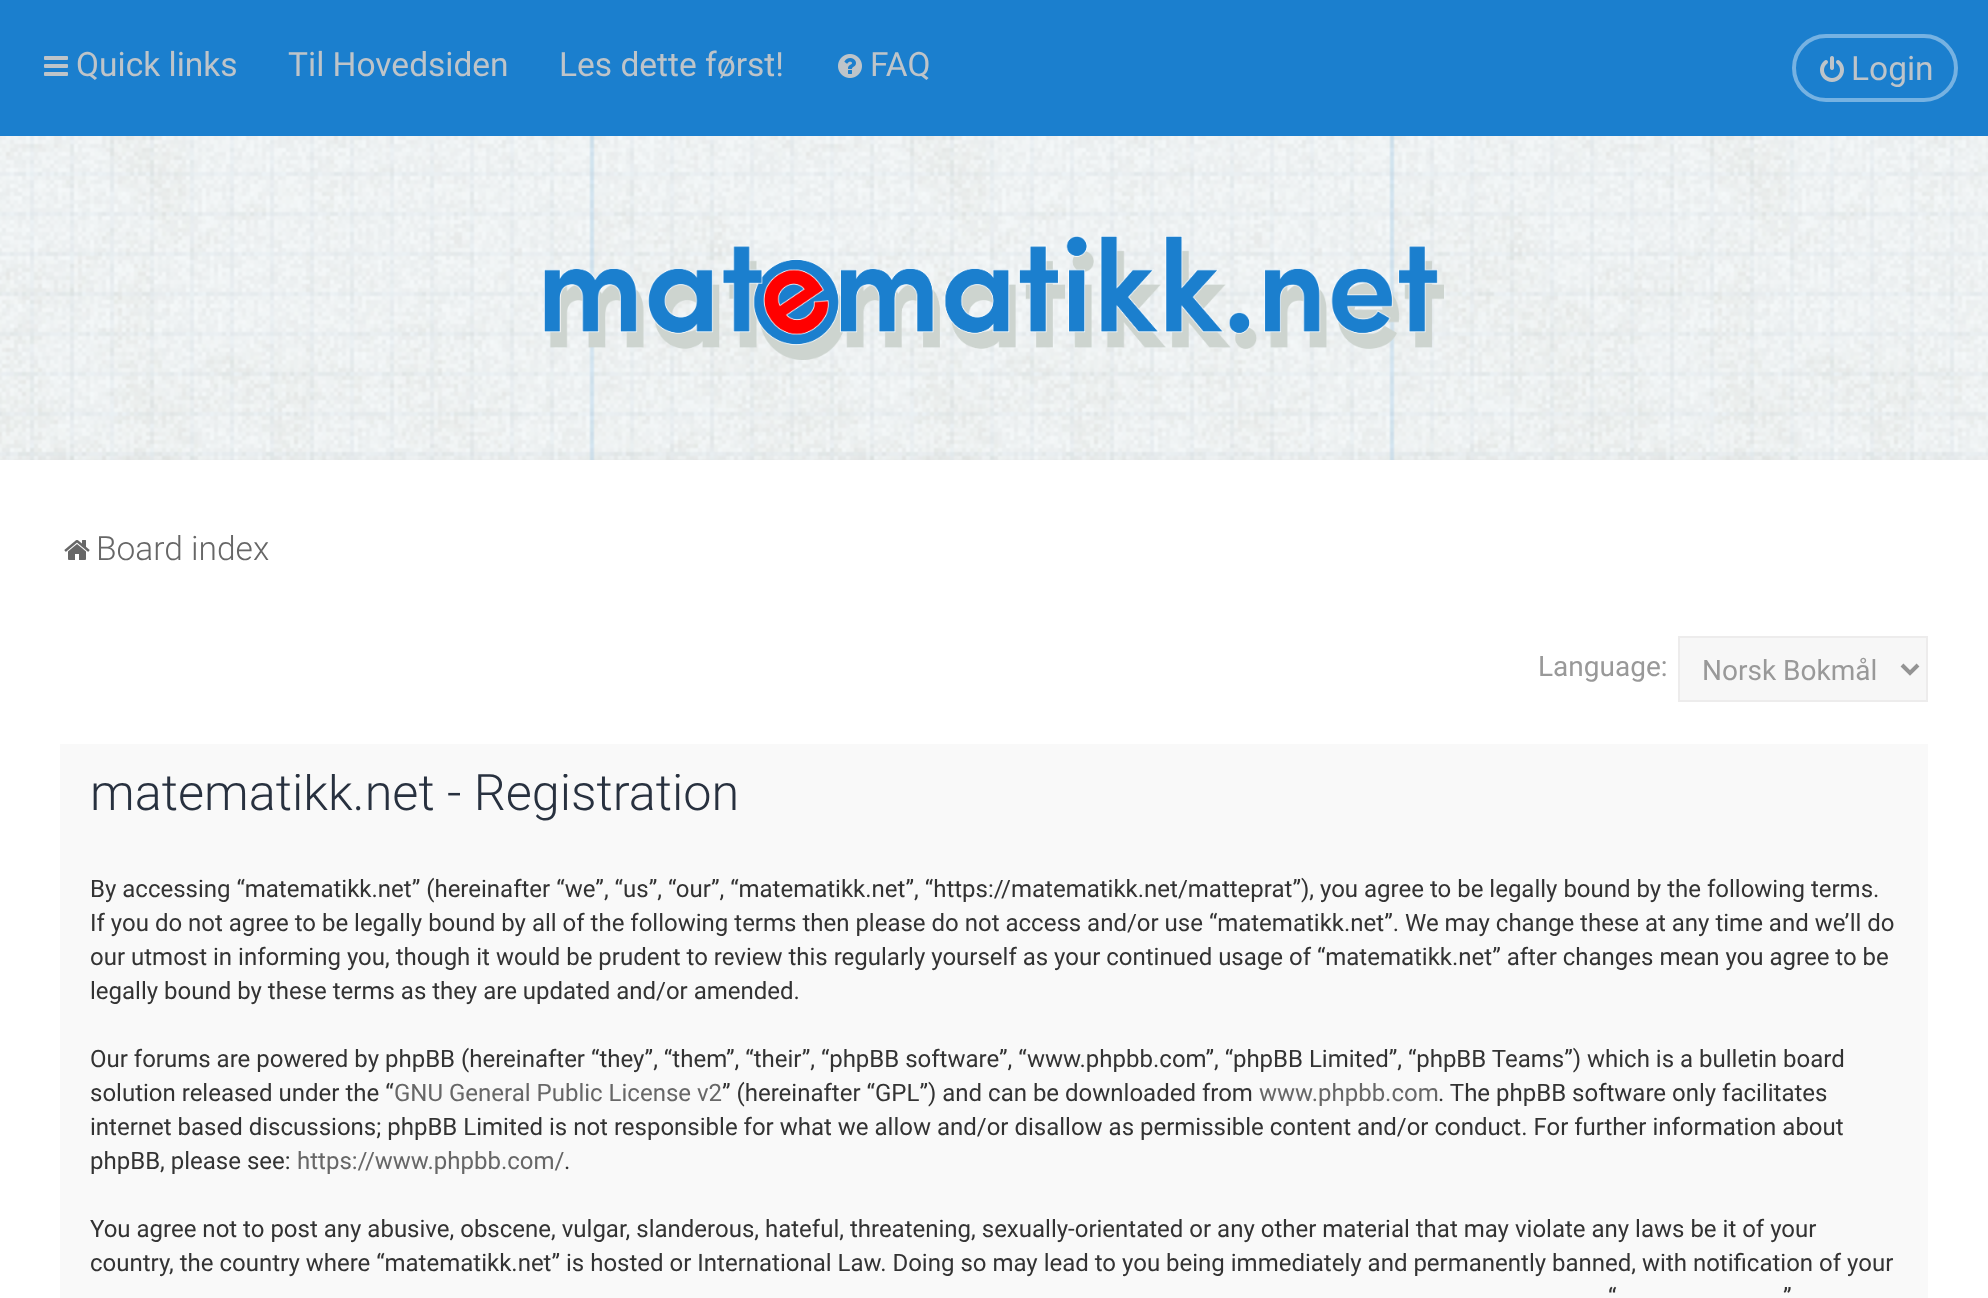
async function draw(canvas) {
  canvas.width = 1988;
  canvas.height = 1298;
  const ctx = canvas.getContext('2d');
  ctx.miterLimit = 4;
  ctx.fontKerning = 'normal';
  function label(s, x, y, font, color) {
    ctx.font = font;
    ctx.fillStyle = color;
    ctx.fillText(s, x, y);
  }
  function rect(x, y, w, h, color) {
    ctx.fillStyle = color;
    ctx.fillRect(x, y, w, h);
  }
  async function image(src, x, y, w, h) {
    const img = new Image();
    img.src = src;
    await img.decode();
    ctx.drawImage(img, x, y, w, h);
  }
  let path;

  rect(0, 0, 1988, 1298, '#fff');
  rect(0, 0, 1988, 136, '#1b7fce');
  await image('assets/img1.png', 44, 56, 24, 20);
  label('Quick links', 76, 76, '33.5px Roboto', '#bec4c9');
  label('Til Hovedsiden', 288, 76, '33.5px Roboto', '#bec4c9');
  label('Les dette først!', 559, 76, '33.5px Roboto', '#bec4c9');
  await image('assets/img2.png', 838, 54, 24, 24);
  label('FAQ', 870, 76, '33.5px Roboto', '#bec4c9');
  ctx.beginPath();
  ctx.roundRect(1794, 36, 162, 64, 32);
  ctx.strokeStyle = '#76b2e2';
  ctx.lineWidth = 4;
  ctx.stroke();
  await image('assets/img3.png', 1820, 56, 24, 26);
  label('Login', 1851, 80, '33.5px Roboto', '#bec4c9');
  await image('assets/img4.png', 0, 136, 1988, 324);
  await image('assets/img5.png', 544, 236, 900, 124);
  ctx.fillStyle = '#0000000d';
  ctx.filter = 'blur(5px)';
  ctx.beginPath();
  ctx.rect(0, 460, 1988, 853);
  ctx.fill();
  ctx.filter = 'none';
  rect(0, 460, 1988, 838, '#fff');
  await image('assets/img6.png', 64, 540, 26, 20);
  label('Board index', 96, 560, '300 33.5px Roboto', '#676767');
  label('Language:', 1538, 676, '28px Roboto', '#999');
  ctx.fillStyle = '#f7f7f7';
  ctx.beginPath();
  ctx.rect(1679, 637, 248, 64);
  ctx.fill();
  ctx.strokeStyle = '#edecec';
  ctx.lineWidth = 2;
  ctx.stroke();
  path = new Path2D('M1902 665L1910 673L1918 665');
  ctx.strokeStyle = '#949494';
  ctx.lineWidth = 4;
  ctx.stroke(path);
  label('Norsk Bokmål', 1702, 680, '28px Roboto', '#999');
  rect(60, 744, 1868, 554, '#f9f9f9');
  ctx.save();
  ctx.beginPath();
  ctx.rect(90, 774, 1808, 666);
  ctx.clip();
  label('matematikk.net - Registration', 90, 810, '300 50.4px Roboto', '#28313f');
  ctx.restore();
  label('By accessing “matematikk.net” (hereinafter “we”, “us”, “our”, “matematikk.net”, “https://matematikk.net/matteprat”), you agree to be legally bound by the following terms.', 90, 897, '24px Roboto', '#333');
  label('If you do not agree to be legally bound by all of the following terms then please do not access and/or use “matematikk.net”. We may change these at any time and we’ll do', 90, 931, '24px Roboto', '#333');
  label('our utmost in informing you, though it would be prudent to review this regularly yourself as your continued usage of “matematikk.net” after changes mean you agree to be', 90, 965, '24px Roboto', '#333');
  label('legally bound by these terms as they are updated and/or amended.', 90, 999, '24px Roboto', '#333');
  label('Our forums are powered by phpBB (hereinafter “they”, “them”, “their”, “phpBB software”, “www.phpbb.com”, “phpBB Limited”, “phpBB Teams”) which is a bulletin board', 90, 1067, '24px Roboto', '#333');
  label('solution released under the “', 90, 1101, '24px Roboto', '#333');
  label('GNU General Public License v2', 394, 1101, '24px Roboto', '#676767');
  label('” (hereinafter “GPL”) and can be downloaded from', 722, 1101, '24px Roboto', '#333');
  label('www.phpbb.com', 1259, 1101, '24px Roboto', '#676767');
  label('. The phpBB software only facilitates', 1438, 1101, '24px Roboto', '#333');
  label('internet based discussions; phpBB Limited is not responsible for what we allow and/or disallow as permissible content and/or conduct. For further information about', 90, 1135, '24px Roboto', '#333');
  label('phpBB, please see:', 90, 1169, '24px Roboto', '#333');
  label('https://www.phpbb.com/', 297, 1169, '24px Roboto', '#676767');
  label('.', 564, 1169, '24px Roboto', '#333');
  label('You agree not to post any abusive, obscene, vulgar, slanderous, hateful, threatening, sexually-orientated or any other material that may violate any laws be it of your', 90, 1237, '24px Roboto', '#333');
  label('country, the country where “matematikk.net” is hosted or International Law. Doing so may lead to you being immediately and permanently banned, with notification of your', 90, 1271, '24px Roboto', '#333');
  label('“', 1608, 1305, '24px Roboto', '#333');
  label('”', 1783, 1305, '24px Roboto', '#333');
}

draw(document.querySelector('canvas'));
